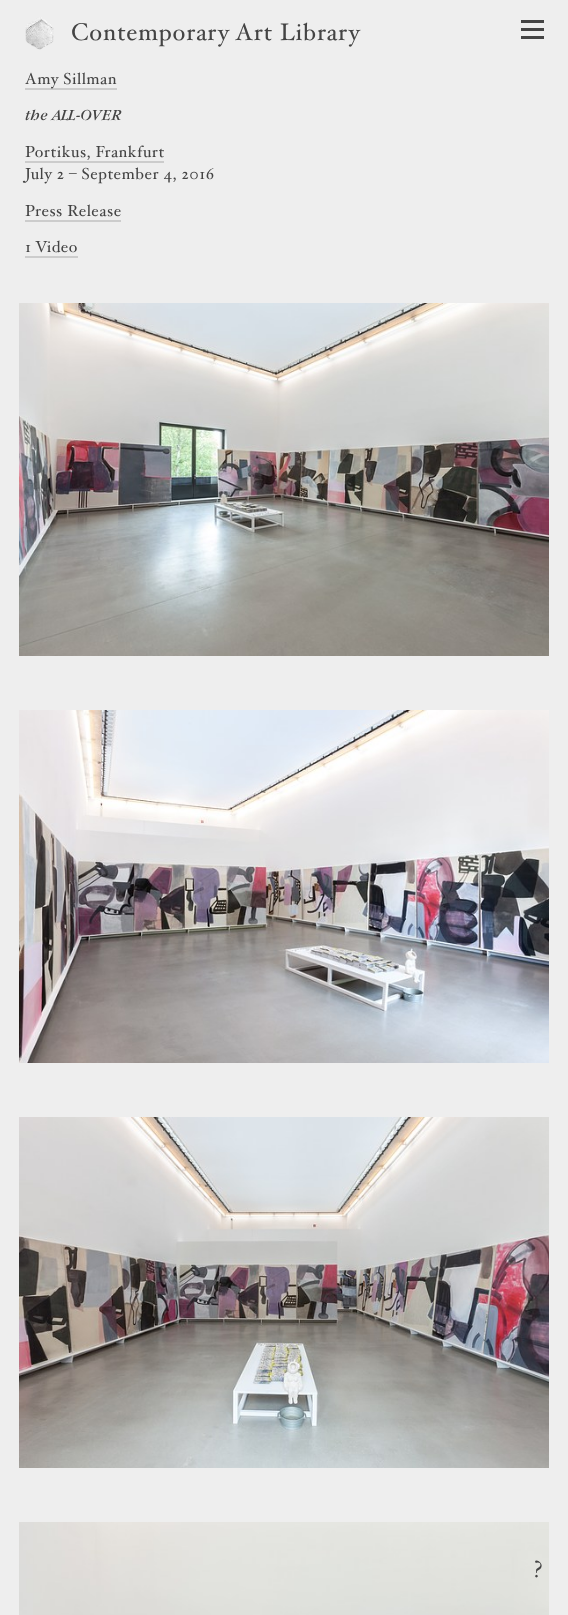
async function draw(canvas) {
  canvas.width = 568;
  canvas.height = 1615;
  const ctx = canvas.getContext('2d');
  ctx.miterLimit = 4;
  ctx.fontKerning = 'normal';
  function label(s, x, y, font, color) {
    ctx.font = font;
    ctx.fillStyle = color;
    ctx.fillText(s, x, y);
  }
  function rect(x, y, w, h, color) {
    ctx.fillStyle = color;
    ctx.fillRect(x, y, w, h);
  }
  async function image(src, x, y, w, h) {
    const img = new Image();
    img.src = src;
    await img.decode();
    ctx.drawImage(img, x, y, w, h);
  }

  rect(0, 0, 568, 1615, '#eee');
  await image('assets/img1.png', 25, 17, 29, 33);
  ctx.letterSpacing = '0.75px';
  label('Contemporary Art Library', 71, 40, '24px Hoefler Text', '#444');
  rect(521, 20, 23, 3, '#444');
  rect(521, 28, 23, 3, '#444');
  rect(521, 36, 23, 3, '#444');
  rect(25, 88, 92, 2, '#ccc');
  ctx.letterSpacing = '0.5px';
  label('Amy Sillman', 25, 84, '16px Hoefler Text', '#444');
  label('the ALL-OVER', 25, 120, 'italic 16px Garamond', '#444');
  label('Portikus, Frankfurt', 25, 157, '16px Hoefler Text', '#444');
  rect(25, 161, 139, 2, '#ccc');
  label('July 2 – September 4, 2016', 25, 179, '16px Hoefler Text', '#444');
  label('Press Release', 25, 216, '16px Hoefler Text', '#444');
  rect(25, 220, 96, 2, '#ccc');
  label('1 Video', 25, 252, '16px Hoefler Text', '#444');
  rect(25, 256, 53, 2, '#ccc');
  await image('assets/img2.png', 19, 303, 530, 353);
  await image('assets/img3.png', 19, 710, 530, 353);
  await image('assets/img4.png', 19, 1117, 530, 351);
  await image('assets/img5.png', 19, 1522, 530, 93);
  label('?', 534, 1577, '24px Hoefler Text', '#444');
}

draw(document.querySelector('canvas'));
